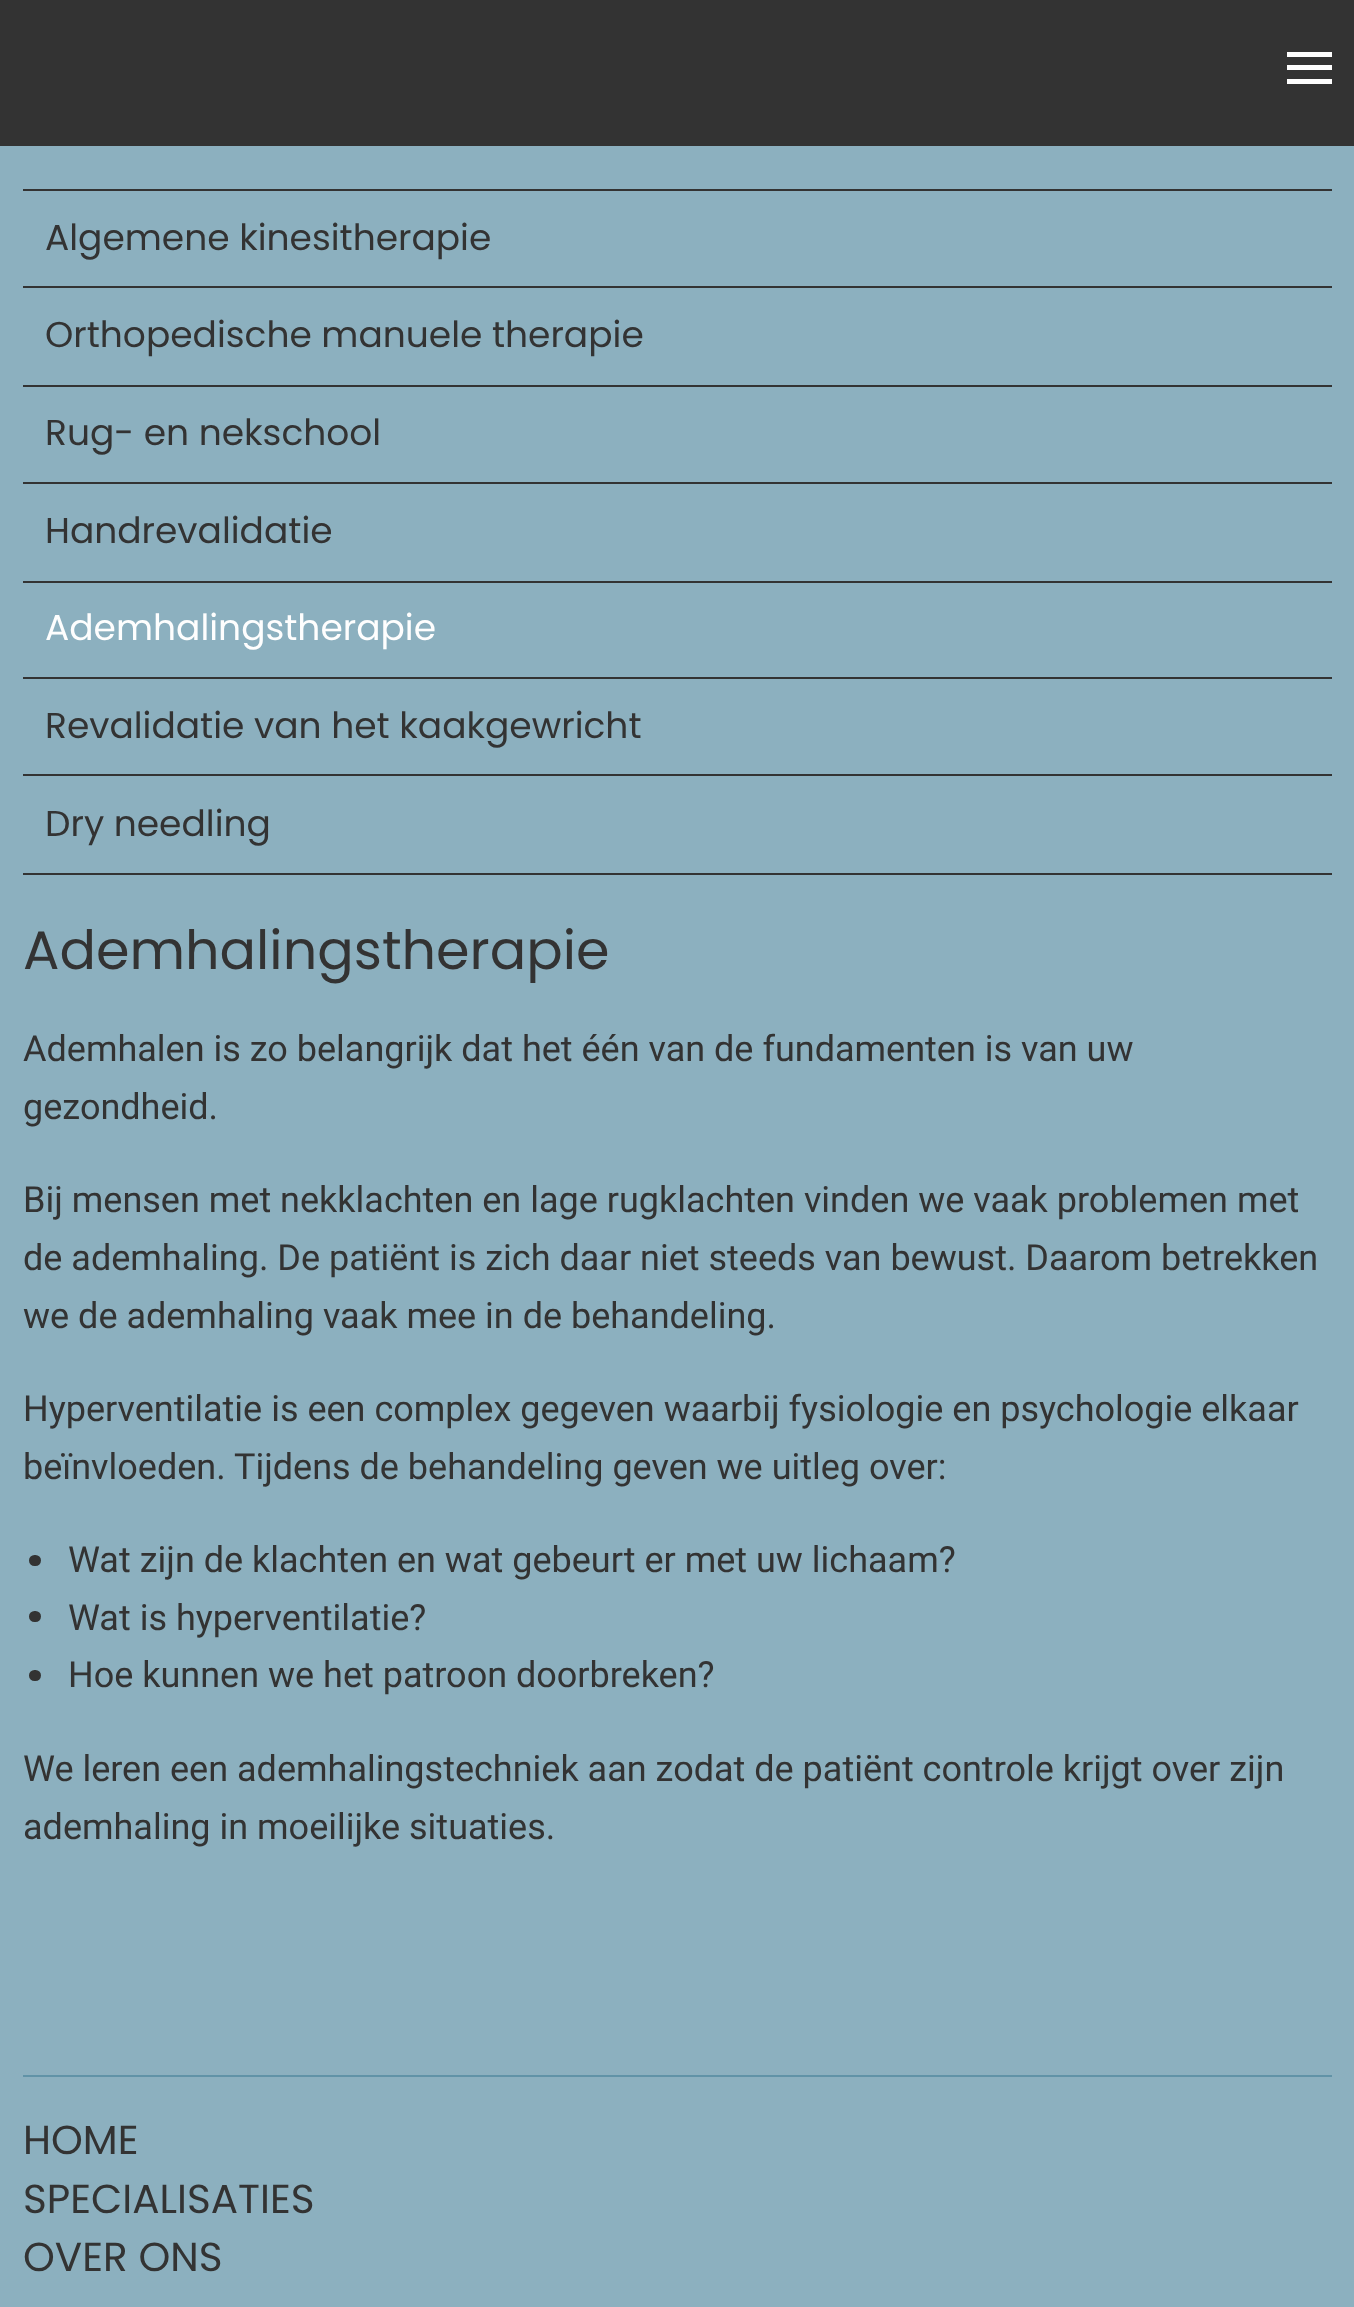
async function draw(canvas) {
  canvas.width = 1354;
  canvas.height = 2307;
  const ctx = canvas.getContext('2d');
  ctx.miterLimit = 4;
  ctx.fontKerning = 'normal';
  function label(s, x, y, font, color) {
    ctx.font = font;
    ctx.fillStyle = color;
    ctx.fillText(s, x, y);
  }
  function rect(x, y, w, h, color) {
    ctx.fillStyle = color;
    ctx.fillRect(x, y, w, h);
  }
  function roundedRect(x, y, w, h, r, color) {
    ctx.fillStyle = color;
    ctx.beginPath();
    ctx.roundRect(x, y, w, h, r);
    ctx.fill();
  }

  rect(0, 0, 1354, 2307, '#8cb0bf');
  rect(0, 0, 1354, 146, '#333');
  rect(1287, 79, 45, 5, '#fefefe');
  rect(1287, 65, 45, 5, '#fefefe');
  rect(1287, 52, 45, 5, '#fefefe');
  rect(23, 189, 1309, 2, '#333');
  rect(23, 286, 1309, 2, '#333');
  label('Algemene kinesitherapie', 45, 250, '36px Poppins', '#333');
  rect(23, 385, 1309, 2, '#333');
  label('Orthopedische manuele therapie', 45, 347, '36px Poppins', '#333');
  rect(23, 482, 1309, 2, '#333');
  label('Rug- en nekschool', 45, 445, '36px Poppins', '#333');
  rect(23, 581, 1309, 2, '#333');
  label('Handrevalidatie', 45, 543, '36px Poppins', '#333');
  rect(23, 677, 1309, 2, '#333');
  label('Ademhalingstherapie', 45, 640, '36px Poppins', '#fefefe');
  rect(23, 774, 1309, 2, '#333');
  label('Revalidatie van het kaakgewricht', 45, 738, '36px Poppins', '#333');
  rect(23, 873, 1309, 2, '#333');
  label('Dry needling', 45, 836, '36px Poppins', '#333');
  label('Ademhalingstherapie', 23, 969, '54px Poppins', '#333');
  label('Ademhalen is zo belangrijk dat het één van de fundamenten is van uw', 23, 1061, '36px Roboto', '#333');
  label('gezondheid.', 23, 1119, '36px Roboto', '#333');
  label('Bij mensen met nekklachten en lage rugklachten vinden we vaak problemen met', 23, 1212, '36px Roboto', '#333');
  label('de ademhaling. De patiënt is zich daar niet steeds van bewust. Daarom betrekken', 23, 1270, '36px Roboto', '#333');
  label('we de ademhaling vaak mee in de behandeling.', 23, 1328, '36px Roboto', '#333');
  label('Hyperventilatie is een complex gegeven waarbij fysiologie en psychologie elkaar', 23, 1421, '36px Roboto', '#333');
  label('beïnvloeden. Tijdens de behandeling geven we uitleg over:', 23, 1479, '36px Roboto', '#333');
  roundedRect(29, 1555, 12, 11, 5.5, '#333');
  label('Wat zijn de klachten en wat gebeurt er met uw lichaam?', 68, 1572, '36px Roboto', '#333');
  roundedRect(29, 1611, 12, 11, 5.5, '#333');
  label('Wat is hyperventilatie?', 68, 1630, '36px Roboto', '#333');
  roundedRect(29, 1670, 12, 11, 5.5, '#333');
  label('Hoe kunnen we het patroon doorbreken?', 68, 1687, '36px Roboto', '#333');
  label('We leren een ademhalingstechniek aan zodat de patiënt controle krijgt over zijn', 23, 1781, '36px Roboto', '#333');
  label('ademhaling in moeilijke situaties.', 23, 1839, '36px Roboto', '#333');
  rect(23, 2075, 1309, 2, '#6193a7');
  label('HOME', 23, 2154, '40.5px Poppins', '#333');
  label('SPECIALISATIES', 23, 2213, '40.5px Poppins', '#333');
  label('OVER ONS', 23, 2271, '40.5px Poppins', '#333');
}

draw(document.querySelector('canvas'));
